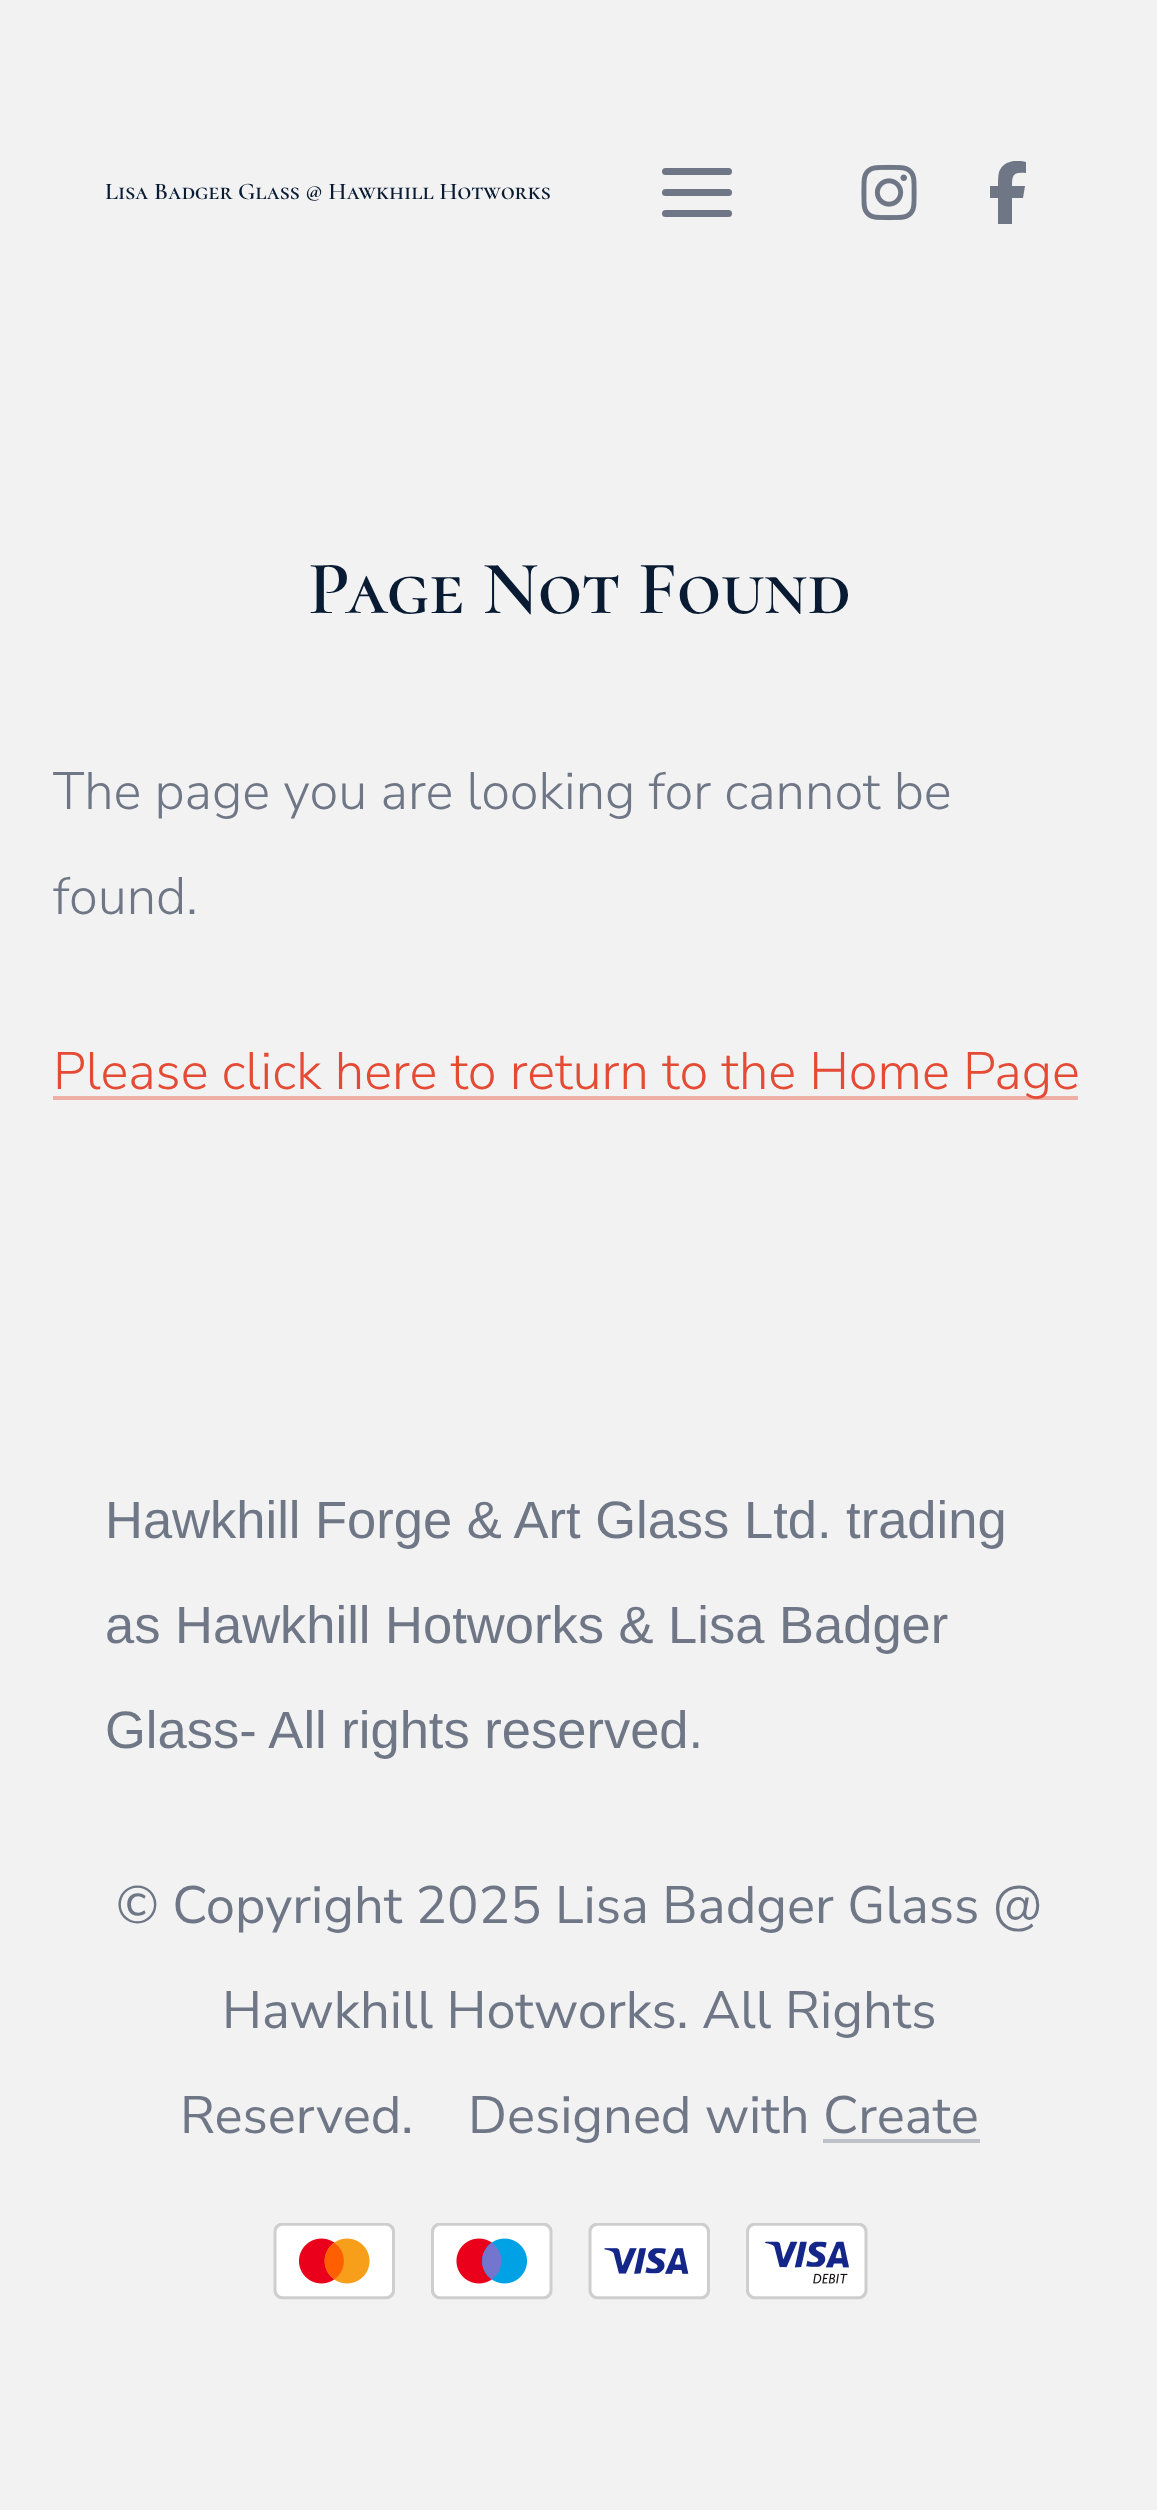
async function draw(canvas) {
  canvas.width = 1157;
  canvas.height = 2510;
  const ctx = canvas.getContext('2d');
  ctx.miterLimit = 4;
  ctx.fontKerning = 'normal';
  function label(s, x, y, font, color) {
    ctx.font = font;
    ctx.fillStyle = color;
    ctx.fillText(s, x, y);
  }
  function rect(x, y, w, h, color) {
    ctx.fillStyle = color;
    ctx.fillRect(x, y, w, h);
  }
  function roundedRect(x, y, w, h, r, color) {
    ctx.fillStyle = color;
    ctx.beginPath();
    ctx.roundRect(x, y, w, h, r);
    ctx.fill();
  }
  async function image(src, x, y, w, h) {
    const img = new Image();
    img.src = src;
    await img.decode();
    ctx.drawImage(img, x, y, w, h);
  }
  let path;

  rect(0, 0, 1157, 2510, '#f2f2f2');
  label('Lisa Badger Glass @ Hawkhill Hotworks', 105, 199, '600 24px Cormorant SC', '#081b33');
  roundedRect(662, 189, 70, 7, 3.5, '#6f7787');
  roundedRect(662, 168, 70, 7, 3.5, '#6f7787');
  roundedRect(662, 210, 70, 7, 3.5, '#6f7787');
  await image('assets/img1.png', 861, 164, 56, 57);
  ctx.save();
  ctx.beginPath();
  ctx.rect(977, 161, 63, 63);
  ctx.clip();
  path = new Path2D('M998 198V224H1012V198H1023L1025 186H1012C1012 174 1014 172 1026 173V162C1016 159 1003 161 999 172C998 176 998 181 998 186H990V198Z');
  ctx.fill(path);
  ctx.restore();
  label('Page Not Found', 308, 613, '600 76.25px Cormorant SC', '#081b33');
  label('The page you are looking for cannot be', 53, 809, '300 52.5px Nunito Sans', '#6f7787');
  label('found.', 53, 914, '300 52.5px Nunito Sans', '#6f7787');
  rect(53, 1096, 1025, 4, '#edafa6');
  label('Please click here to return to the Home Page', 53, 1089, '300 52.5px Nunito Sans', '#e54a35');
  label('Hawkhill Forge & Art Glass Ltd. trading', 105, 1538, '52.5px Liberation Sans', '#6f7787');
  label('as Hawkhill Hotworks & Lisa Badger', 105, 1643, '52.5px Liberation Sans', '#6f7787');
  label('Glass- All rights reserved.', 105, 1748, '52.5px Liberation Sans', '#6f7787');
  label('© Copyright 2025 Lisa Badger Glass @', 116, 1923, '52.5px Nunito Sans', '#6f7787');
  label('Hawkhill Hotworks. All Rights', 222, 2028, '52.5px Nunito Sans', '#6f7787');
  label('Reserved.', 180, 2133, '52.5px Nunito Sans', '#6f7787');
  label('Designed with Create', 468, 2133, '52.5px Nunito Sans', '#6f7787');
  rect(823, 2139, 157, 4, '#bec1c7');
  await image('assets/img2.png', 273, 2223, 122, 77);
  await image('assets/img3.png', 431, 2223, 122, 77);
  await image('assets/img4.png', 588, 2223, 122, 77);
  await image('assets/img5.png', 746, 2223, 122, 77);
}

draw(document.querySelector('canvas'));
